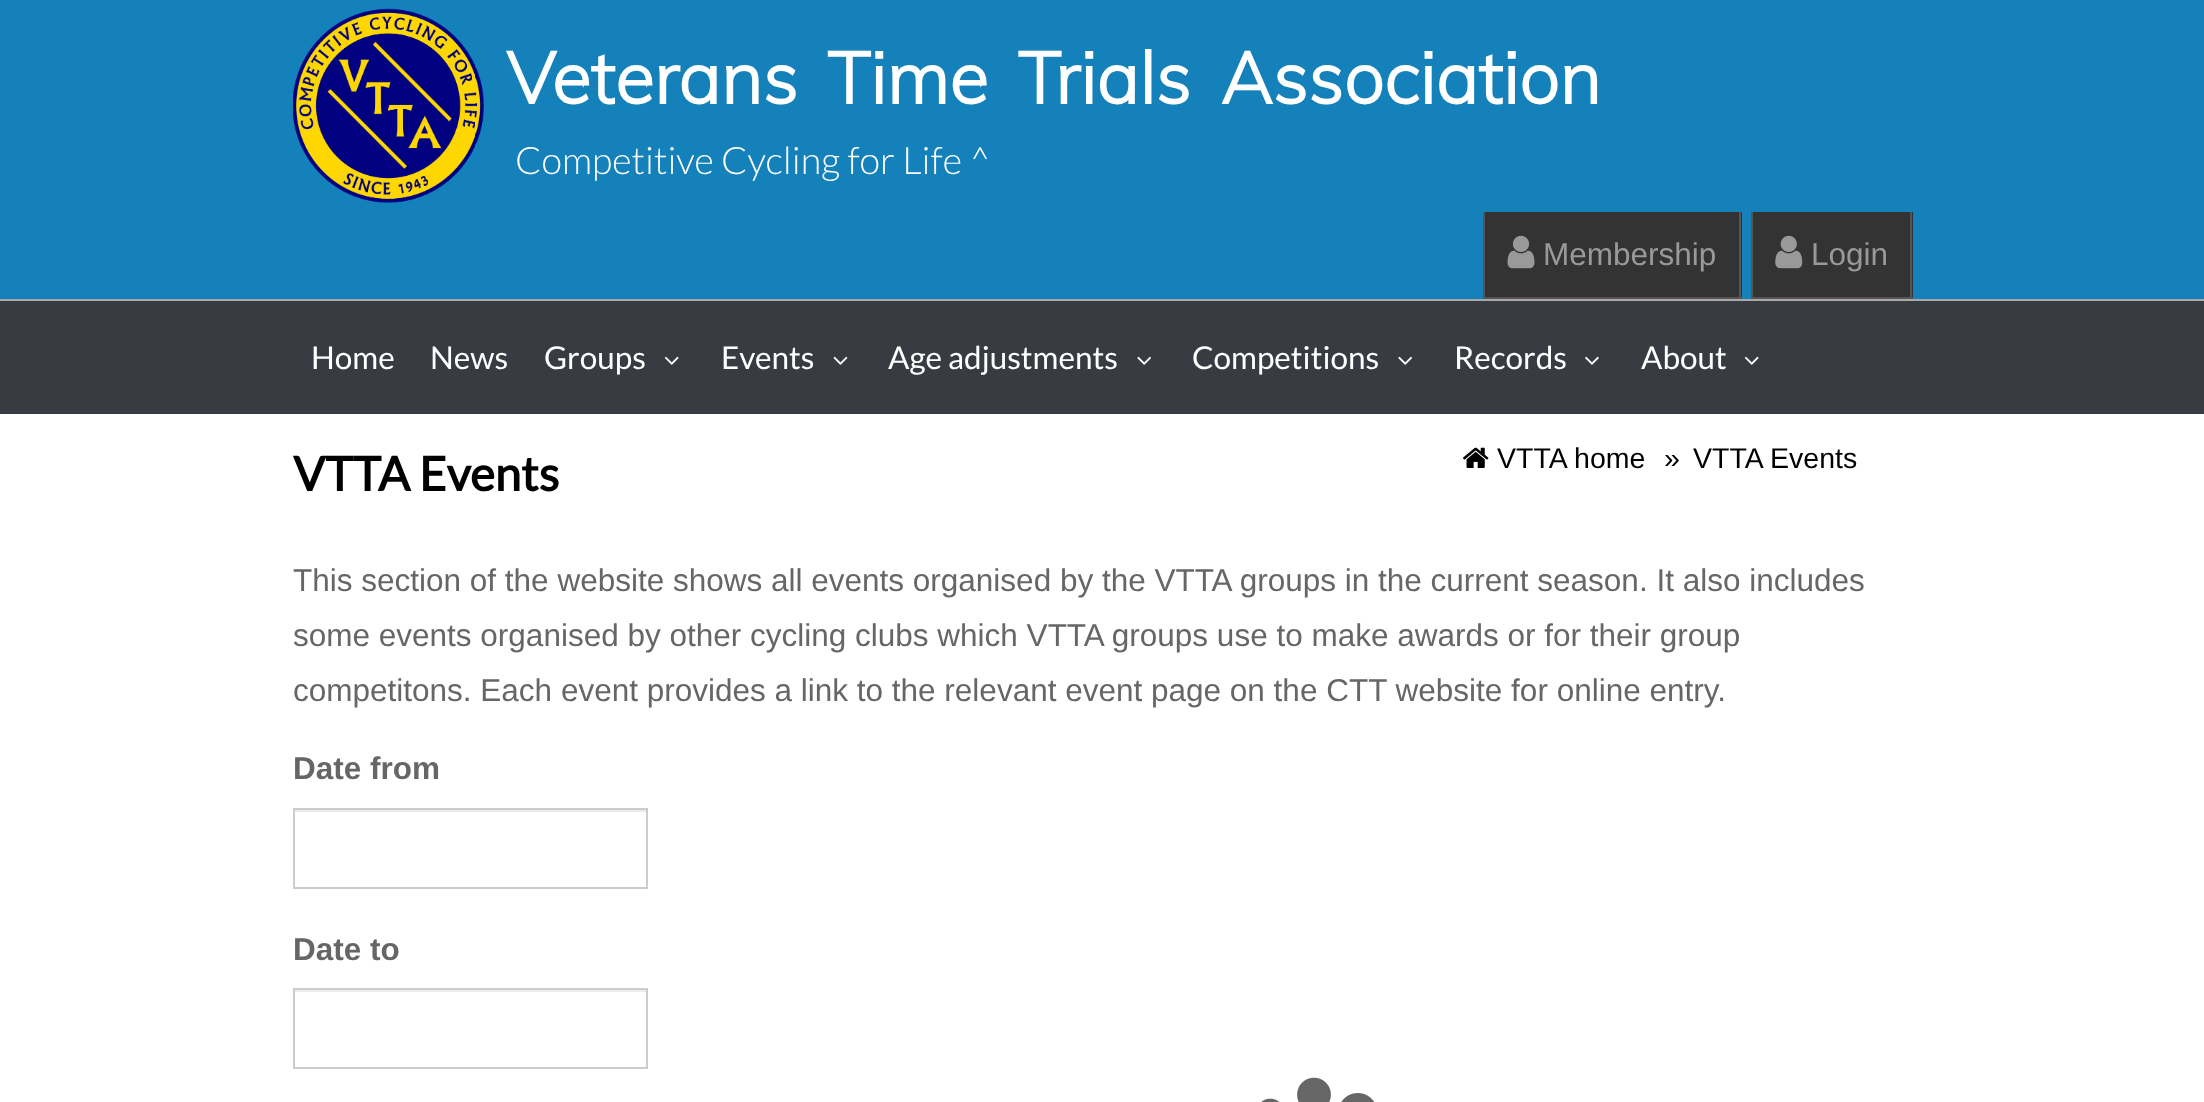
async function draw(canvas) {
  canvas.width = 2204;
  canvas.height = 1102;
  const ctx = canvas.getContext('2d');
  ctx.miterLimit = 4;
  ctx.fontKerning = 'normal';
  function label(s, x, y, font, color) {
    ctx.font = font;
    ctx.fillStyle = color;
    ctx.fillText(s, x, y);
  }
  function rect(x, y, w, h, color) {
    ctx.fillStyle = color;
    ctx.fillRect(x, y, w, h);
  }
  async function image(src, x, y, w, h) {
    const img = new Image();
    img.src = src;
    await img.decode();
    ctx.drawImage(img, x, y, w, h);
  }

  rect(0, 0, 2204, 1102, '#fff');
  rect(0, 0, 2204, 299, '#1481ba');
  await image('assets/img1.png', 293, 8, 191, 195);
  ctx.wordSpacing = '11px';
  label('Veterans Time Trials Association', 506, 104, 'bold 72px Muli', '#fff');
  ctx.wordSpacing = '0px';
  label('Competitive Cycling for Life ^', 515, 174, '300 37.75px Lato', '#fff');
  rect(1485, 212, 257, 85, '#333');
  rect(1739, 212, 2, 87, '#555');
  rect(1483, 297, 259, 2, '#555');
  rect(1483, 212, 2, 87, '#555');
  await image('assets/img2.png', 1507, 235, 28, 34);
  label('Membership', 1543, 265, '31.5px Liberation Sans', '#999');
  rect(1753, 212, 160, 85, '#333');
  rect(1910, 212, 2, 87, '#555');
  rect(1751, 297, 162, 2, '#555');
  rect(1751, 212, 2, 87, '#555');
  await image('assets/img3.png', 1775, 235, 28, 34);
  label('Login', 1811, 265, '31.5px Liberation Sans', '#999');
  rect(0, 301, 2204, 113, '#383b42');
  rect(0, 299, 2204, 2, '#a9a9a9');
  label('Home', 311, 369, '31.5px Lato', '#fff');
  label('News', 430, 369, '31.5px Lato', '#fff');
  label('Groups', 544, 369, '31.5px Lato', '#fff');
  await image('assets/img4.png', 664, 356, 15, 9);
  label('Events', 721, 369, '31.5px Lato', '#fff');
  await image('assets/img5.png', 833, 356, 15, 9);
  label('Age adjustments', 888, 369, '31.5px Lato', '#fff');
  await image('assets/img6.png', 1137, 356, 14, 9);
  label('Competitions', 1192, 369, '31.5px Lato', '#fff');
  await image('assets/img6.png', 1398, 356, 14, 9);
  label('Records', 1454, 369, '31.5px Lato', '#fff');
  await image('assets/img7.png', 1585, 356, 14, 9);
  label('About', 1641, 369, '31.5px Lato', '#fff');
  await image('assets/img4.png', 1744, 356, 15, 9);
  label('VTTA Events', 293, 491, 'bold 47.25px Lato', '#000');
  await image('assets/img8.png', 1463, 447, 26, 21);
  label('VTTA home', 1497, 468, '28.5px Liberation Sans', '#000');
  label('»', 1664, 468, '28.5px Liberation Sans', '#000');
  label('VTTA Events', 1693, 468, '28.5px Liberation Sans', '#000');
  label('This section of the website shows all events organised by the VTTA groups in the current season. It also includes', 293, 591, '31.5px Liberation Sans', '#666');
  label('some events organised by other cycling clubs which VTTA groups use to make awards or for their group', 293, 646, '31.5px Liberation Sans', '#666');
  label('competitons. Each event provides a link to the relevant event page on the CTT website for online entry.', 293, 701, '31.5px Liberation Sans', '#666');
  label('Date from', 293, 779, 'bold 31.5px Liberation Sans', '#666');
  rect(295, 810, 351, 2, '#ececec');
  ctx.strokeStyle = '#ccc';
  ctx.lineWidth = 2;
  ctx.strokeRect(294, 809, 353, 79);
  label('Date to', 293, 960, 'bold 31.5px Liberation Sans', '#666');
  rect(295, 990, 351, 2, '#ececec');
  ctx.strokeRect(294, 989, 353, 79);
  await image('assets/img9.png', 1261, 1077, 114, 25);
}

draw(document.querySelector('canvas'));
